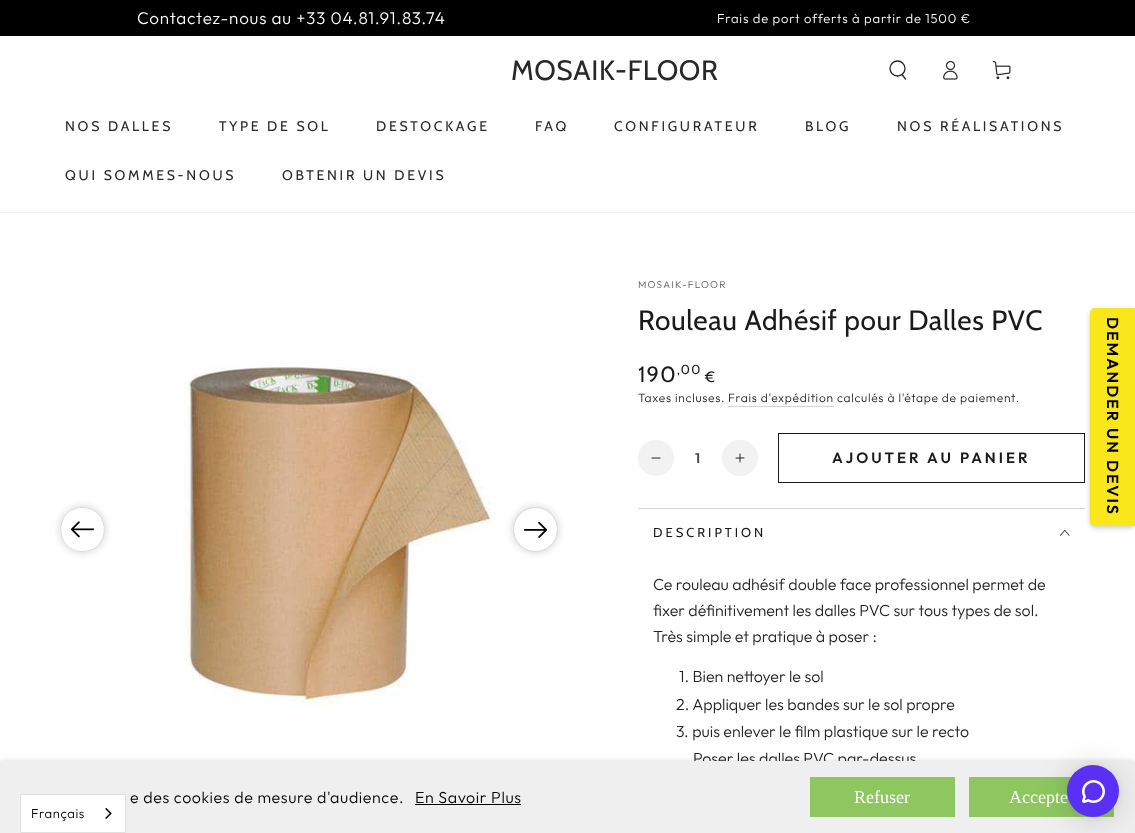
async function draw(canvas) {
  canvas.width = 1135;
  canvas.height = 833;
  const ctx = canvas.getContext('2d');
  ctx.miterLimit = 4;
  ctx.fontKerning = 'normal';
  function label(s, x, y, font, color) {
    ctx.font = font;
    ctx.fillStyle = color;
    ctx.fillText(s, x, y);
  }
  function rect(x, y, w, h, color) {
    ctx.fillStyle = color;
    ctx.fillRect(x, y, w, h);
  }
  async function image(src, x, y, w, h) {
    const img = new Image();
    img.src = src;
    await img.decode();
    ctx.drawImage(img, x, y, w, h);
  }
  let path;

  rect(0, 0, 1135, 833, '#fff');
  rect(0, 0, 1135, 36, '#000');
  ctx.letterSpacing = '0.8px';
  label('Contactez-nous au +33 04.81.91.83.74', 137, 24, '300 17px Outfit', '#fff');
  label('Frais de port offerts à partir de 1500 €', 717, 23, '300 13px Outfit', '#fff');
  rect(0, 212, 1135, 1, '#f2f2f4');
  ctx.letterSpacing = '0.6px';
  label('MOSAIK-FLOOR', 511, 80, '28px Cabin', '#282828');
  ctx.beginPath();
  ctx.arc(897.5, 68.5, 7.5, 0, 2 * Math.PI);
  ctx.strokeStyle = '#282828';
  ctx.lineWidth = 1.3;
  ctx.stroke();
  path = new Path2D('M902 74.5L905.5 79');
  ctx.lineCap = 'round';
  ctx.stroke(path);
  await image('assets/img1.png', 943, 60, 15, 20);
  await image('assets/img2.png', 992, 61, 19, 19);
  ctx.letterSpacing = '2.75px';
  label('NOS DALLES', 65, 131, '14px Cabin', '#282828');
  label('TYPE DE SOL', 219, 131, '14px Cabin', '#282828');
  label('DESTOCKAGE', 376, 131, '14px Cabin', '#282828');
  label('FAQ', 535, 131, '14px Cabin', '#282828');
  label('CONFIGURATEUR', 614, 131, '14px Cabin', '#282828');
  label('BLOG', 805, 131, '14px Cabin', '#282828');
  label('NOS RÉALISATIONS', 897, 131, '14px Cabin', '#282828');
  label('QUI SOMMES-NOUS', 65, 180, '14px Cabin', '#282828');
  label('OBTENIR UN DEVIS', 282, 180, '14px Cabin', '#282828');
  await image('assets/img3.png', 50, 248, 518, 513);
  ctx.fillStyle = '#dadada';
  ctx.filter = 'blur(3.5px)';
  ctx.beginPath();
  ctx.roundRect(59, 506, 47, 47, 23.5);
  ctx.fill();
  ctx.filter = 'none';
  ctx.fillStyle = '#fff';
  path = new Path2D('M82 552C53 552 53 507 82 507C112 507 112 552 82 552Z');
  ctx.fill(path);
  path = new Path2D('M82.5 551.5C53.5 551.5 53.5 507.5 82.5 507.5C111.5 507.5 111.5 551.5 82.5 551.5Z');
  ctx.strokeStyle = '#dadada';
  ctx.lineWidth = 1;
  ctx.lineCap = 'butt';
  ctx.stroke(path);
  await image('assets/img4.png', 70, 521, 25, 17);
  ctx.fillStyle = '#dadada';
  ctx.filter = 'blur(3.5px)';
  ctx.beginPath();
  ctx.roundRect(512, 506, 47, 47, 23.5);
  ctx.fill();
  ctx.filter = 'none';
  ctx.fillStyle = '#fff';
  ctx.beginPath();
  ctx.arc(535.5, 529.5, 22, 0, 2 * Math.PI);
  ctx.fill();
  ctx.stroke();
  await image('assets/img5.png', 524, 521, 23, 17);
  ctx.letterSpacing = '1.25px';
  label('MOSAIK-FLOOR', 638, 288, '300 10px Outfit', '#595a5c');
  ctx.letterSpacing = '0.6px';
  label('Rouleau Adhésif pour Dalles PVC', 638, 330, '28px Cabin', '#1a1b18');
  ctx.letterSpacing = '1.25px';
  label('190', 638, 382, '22px Cabin', '#1a1b18');
  label(',00', 677, 374, '13px Cabin', '#1a1b18');
  label('€', 705, 382, '15px Cabin', '#1a1b18');
  ctx.letterSpacing = '0.7px';
  label('Taxes incluses.', 638, 402, '300 12px Outfit', '#212326');
  label('Frais d\'expédition', 728, 402, '300 12px Outfit', '#1a1b18');
  rect(728, 406, 106, 1, '#d2d5d9');
  label('calculés à l\'étape de paiement.', 837, 402, '300 12px Outfit', '#212326');
  ctx.fillStyle = '#f2f2f2';
  ctx.beginPath();
  ctx.arc(656, 458, 18, 0, 2 * Math.PI);
  ctx.fill();
  await image('assets/img6.png', 651, 457, 10, 2);
  ctx.letterSpacing = '0px';
  label('1', 695, 463, '600 14px Outfit', '#424447');
  ctx.fillStyle = '#f2f2f2';
  ctx.beginPath();
  ctx.arc(740, 458, 18, 0, 2 * Math.PI);
  ctx.fill();
  await image('assets/img7.png', 735, 453, 10, 10);
  ctx.strokeStyle = '#1a1b18';
  ctx.strokeRect(778.5, 433.5, 306, 49);
  ctx.letterSpacing = '3px';
  label('AJOUTER AU PANIER', 832, 463, '600 15px Outfit', '#1a1b18');
  rect(638, 508, 447, 1, '#d2d5d9');
  label('DESCRIPTION', 653, 537, '13px Cabin', '#1a1b18');
  await image('assets/img8.png', 1060, 530, 10, 6);
  ctx.letterSpacing = '0px';
  label('Ce rouleau adhésif double face professionnel permet de', 653, 590, '300 16px Outfit', '#212326');
  label('fixer définitivement les dalles PVC sur tous types de sol.', 653, 616, '300 16px Outfit', '#212326');
  label('Très simple et pratique à poser :', 653, 642, '300 16px Outfit', '#212326');
  label('1. Bien nettoyer le sol', 679, 682, '300 16px Outfit', '#212326');
  label('2. Appliquer les bandes sur le sol propre', 676, 710, '300 16px Outfit', '#212326');
  label('3. puis enlever le film plastique sur le recto', 676, 737, '300 16px Outfit', '#212326');
  label('Poser les dalles PVC par-dessus', 693, 764, '300 16px Outfit', '#212326');
  ctx.fillStyle = '#00000026';
  ctx.filter = 'blur(2.5px)';
  ctx.beginPath();
  ctx.rect(0, 761, 1135, 72);
  ctx.fill();
  ctx.filter = 'none';
  rect(0, 761, 1135, 72, '#efefef');
  ctx.letterSpacing = '0.6px';
  label('e des cookies de mesure d\'audience.', 130, 803, '300 16px Outfit', '#000');
  label('En Savoir Plus', 415, 803, '300 16px Outfit', '#000');
  rect(415, 804, 106, 1, '#000');
  rect(810, 777, 145, 40, '#8ec760');
  ctx.letterSpacing = '0px';
  label('Refuser', 854, 803, '18px Liberation Serif', '#fff');
  rect(969, 777, 145, 40, '#8ec760');
  label('Accepte', 1009, 803, '18px Liberation Serif', '#fff');
  ctx.fillStyle = '#00000033';
  ctx.filter = 'blur(2.5px)';
  ctx.beginPath();
  ctx.roundRect(1090, 310, 45, 218, 5);
  ctx.fill();
  ctx.filter = 'none';
  ctx.fillStyle = '#f9e71c';
  ctx.beginPath();
  ctx.roundRect(1090, 308, 45, 218, [5, 0, 0, 5]);
  ctx.fill();
  ctx.letterSpacing = '2px';
  ctx.font = '600 16px Outfit';
  ctx.fillStyle = '#000';
  ctx.save();
  ctx.translate(1107, 317);
  ctx.rotate(90 * Math.PI / 180);
  ctx.fillText('DEMANDER UN DEVIS', 0, 0);
  ctx.restore();
  ctx.fillStyle = '#fff';
  ctx.beginPath();
  ctx.rect(20.5, 794.5, 105, 38);
  ctx.fill();
  ctx.strokeStyle = '#e0e0e0';
  ctx.stroke();
  ctx.letterSpacing = '0.6px';
  label('Français', 31, 818, '300 13px Outfit', '#000');
  await image('assets/img9.png', 105, 808, 7, 11);
  ctx.fillStyle = '#00000029';
  ctx.filter = 'blur(16px)';
  ctx.beginPath();
  ctx.roundRect(1067, 767, 52, 52, 26);
  ctx.fill();
  ctx.filter = 'none';
  ctx.fillStyle = '#0000000f';
  ctx.filter = 'blur(3px)';
  ctx.beginPath();
  ctx.roundRect(1067, 766, 52, 52, 26);
  ctx.fill();
  ctx.filter = 'none';
  ctx.fillStyle = '#5a31f4';
  ctx.beginPath();
  ctx.arc(1093, 791, 26, 0, 2 * Math.PI);
  ctx.fill();
  await image('assets/img10.png', 1082, 780, 23, 23);
}

draw(document.querySelector('canvas'));
